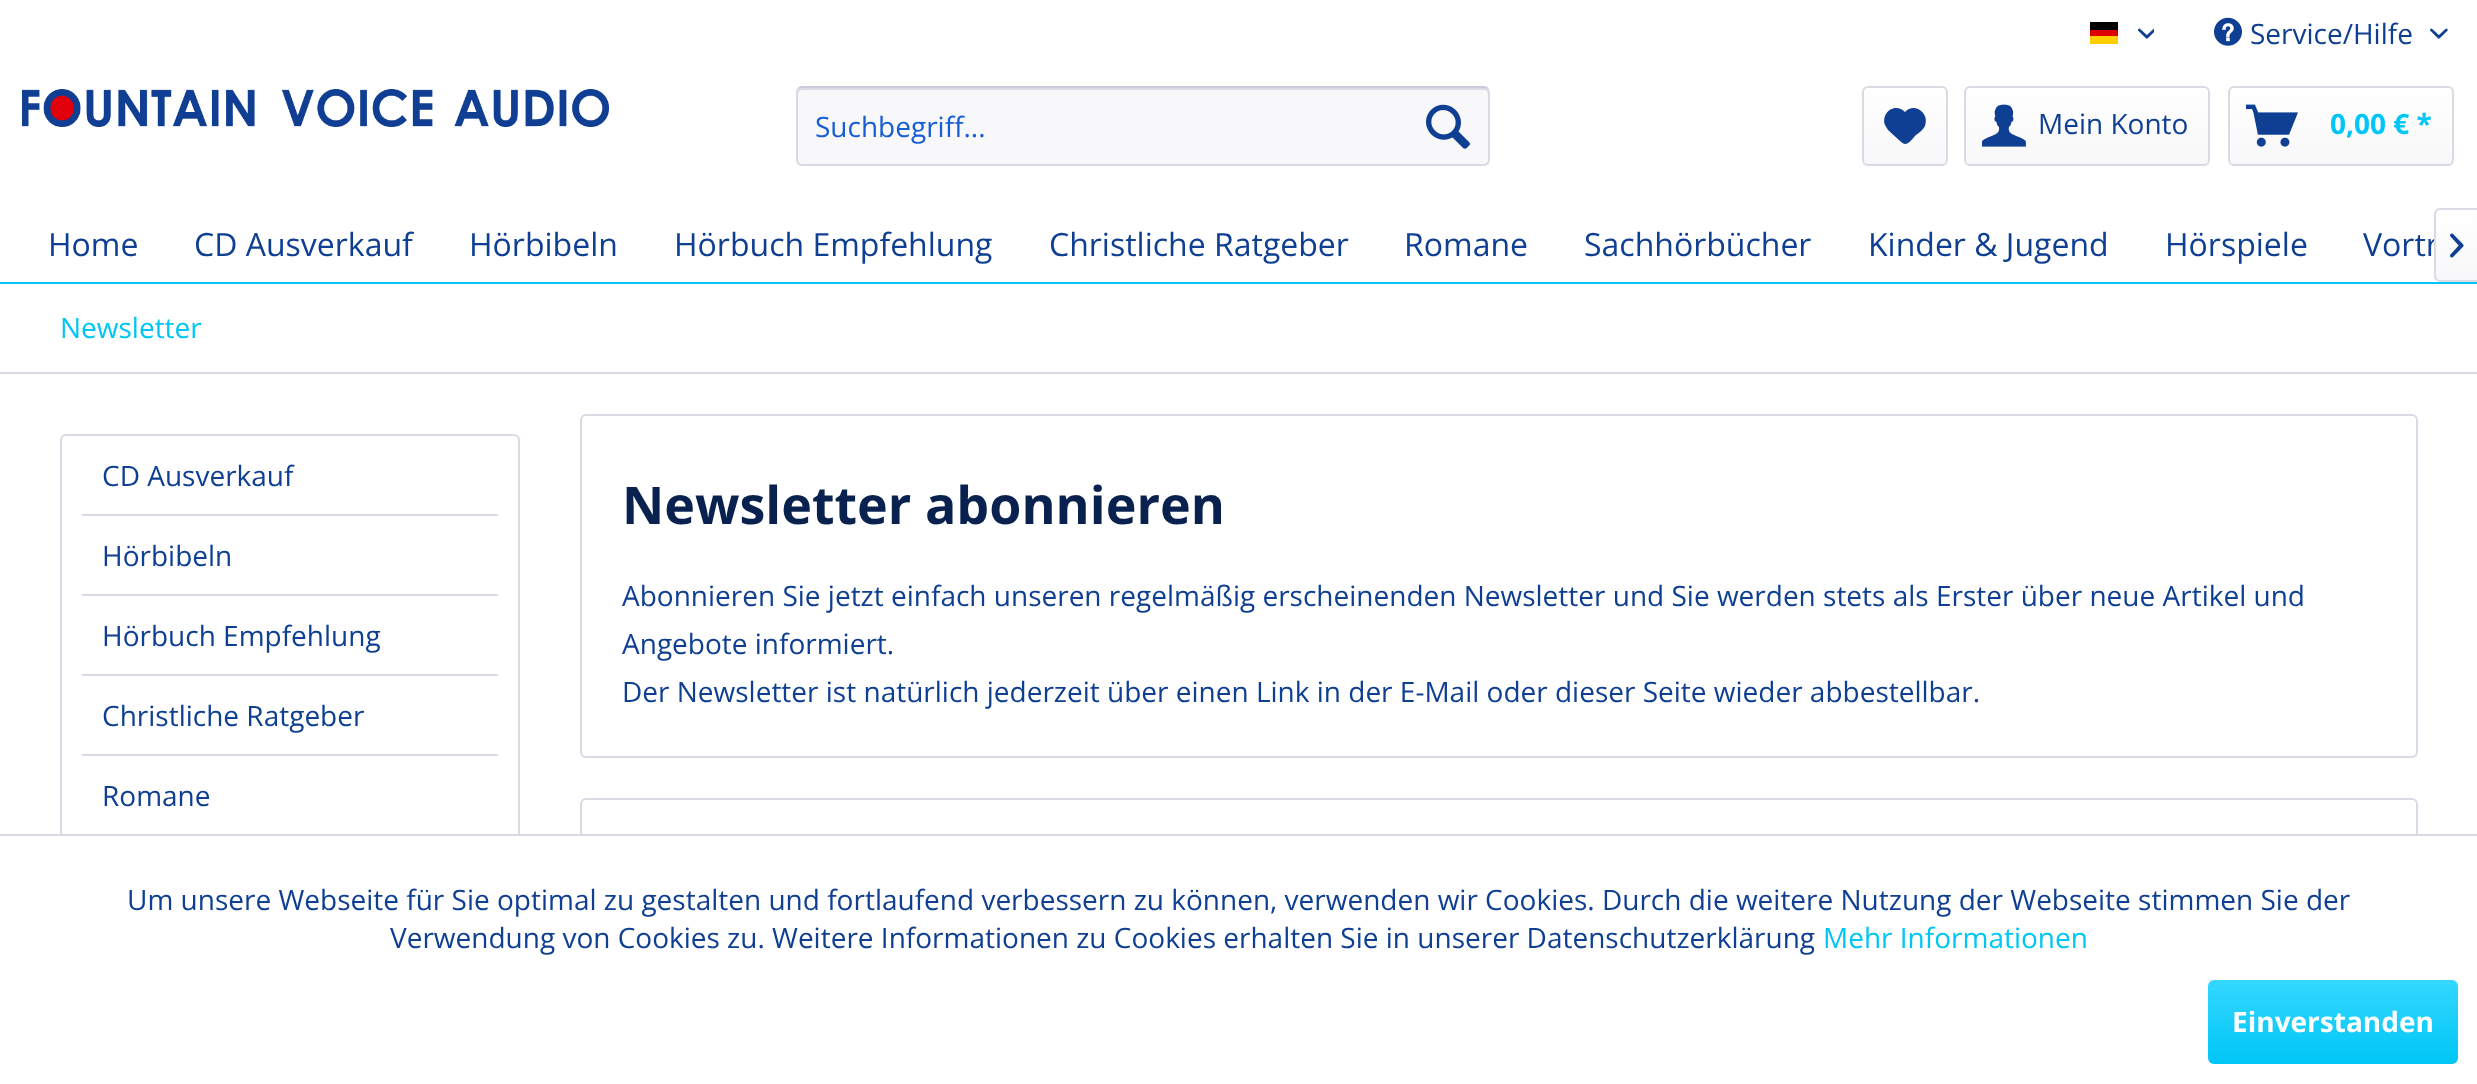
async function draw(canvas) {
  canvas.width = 2477;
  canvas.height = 1084;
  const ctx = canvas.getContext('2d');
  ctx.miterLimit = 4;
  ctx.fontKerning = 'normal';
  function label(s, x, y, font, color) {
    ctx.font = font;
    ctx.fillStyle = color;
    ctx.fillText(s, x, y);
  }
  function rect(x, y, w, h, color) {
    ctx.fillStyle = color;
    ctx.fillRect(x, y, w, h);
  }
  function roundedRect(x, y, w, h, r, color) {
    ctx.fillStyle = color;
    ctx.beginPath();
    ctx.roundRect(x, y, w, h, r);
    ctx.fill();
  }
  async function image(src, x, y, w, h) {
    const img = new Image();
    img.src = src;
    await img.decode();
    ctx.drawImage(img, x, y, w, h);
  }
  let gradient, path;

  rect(0, 0, 2477, 1084, '#fff');
  rect(2090, 22, 28, 8, '#000');
  rect(2090, 30, 28, 6, '#d00');
  rect(2090, 36, 28, 8, '#ffce00');
  await image('assets/img1.png', 2138, 28, 16, 11);
  await image('assets/img2.png', 2214, 17, 28, 29);
  label('Service/Hilfe', 2250, 44, '28px Open Sans', '#0f3f93');
  await image('assets/img3.png', 2430, 28, 18, 11);
  await image('assets/img4.png', 22, 89, 587, 38);
  roundedRect(796, 86, 694, 80, 6, '#f8f8fa');
  ctx.fillStyle = '#dadae5';
  path = new Path2D('M802 90H1484C1486 90 1488 92 1488 94V92C1488 90 1486 88 1484 88H802C800 88 798 90 798 92V94C798 92 800 90 802 90Z');
  ctx.fill(path);
  path = new Path2D('M798.5 88.5C799.5 87.5 800.5 87 802 87H1484C1485.5 87 1486.5 87.5 1487.5 88.5');
  ctx.strokeStyle = '#cbcbdb';
  ctx.lineWidth = 2;
  ctx.stroke(path);
  path = new Path2D('M1487.5 88.5C1488.5 89.5 1489 90.5 1489 92V160C1489 161.5 1488.5 162.5 1487.5 163.5C1486.5 164.5 1485.5 165 1484 165H802C800.5 165 799.5 164.5 798.5 163.5C797.5 162.5 797 161.5 797 160V92C797 90.5 797.5 89.5 798.5 88.5');
  ctx.strokeStyle = '#dadae5';
  ctx.stroke(path);
  label('Suchbegriff...', 815, 137, '28px Open Sans', '#165dd8');
  await image('assets/img5.png', 1426, 104, 44, 45);
  gradient = ctx.createLinearGradient(1905, 88, 1905, 164);
  gradient.addColorStop(0, '#fff');
  gradient.addColorStop(1, '#f8f8fa');
  ctx.fillStyle = gradient;
  ctx.beginPath();
  ctx.roundRect(1864, 88, 82, 76, 4);
  ctx.fill();
  ctx.beginPath();
  ctx.roundRect(1863, 87, 84, 78, 5);
  ctx.stroke();
  ctx.fillStyle = '#0f3f93';
  path = new Path2D('M1896 108C1888 108 1882 117 1885 125L1888 130L1900 141C1907 148 1910 141 1916 135C1919 133 1923 130 1925 126C1930 113 1914 102 1905 112C1903 110 1900 108 1896 108Z');
  ctx.fill(path);
  gradient = ctx.createLinearGradient(2087, 88, 2087, 164);
  gradient.addColorStop(0, '#fff');
  gradient.addColorStop(1, '#f8f8fa');
  ctx.fillStyle = gradient;
  ctx.beginPath();
  ctx.roundRect(1966, 88, 242, 76, 4);
  ctx.fill();
  ctx.beginPath();
  ctx.roundRect(1965, 87, 244, 78, 5);
  ctx.stroke();
  await image('assets/img6.png', 1982, 104, 44, 43);
  label('Mein Konto', 2038, 134, '28px Open Sans', '#0f3f93');
  gradient = ctx.createLinearGradient(2341, 88, 2341, 164);
  gradient.addColorStop(0, '#fff');
  gradient.addColorStop(1, '#f8f8fa');
  ctx.fillStyle = gradient;
  ctx.beginPath();
  ctx.roundRect(2230, 88, 222, 76, 4);
  ctx.fill();
  ctx.beginPath();
  ctx.roundRect(2229, 87, 224, 78, 5);
  ctx.stroke();
  await image('assets/img7.png', 2246, 104, 52, 43);
  label('0,00 € *', 2330, 134, 'bold 28px Open Sans', '#00c6f6');
  rect(0, 282, 2477, 2, '#00c6f6');
  label('Home', 48, 256, '32px Open Sans', '#0f3f93');
  label('CD Ausverkauf', 194, 256, '32px Open Sans', '#0f3f93');
  label('Hörbibeln', 469, 256, '32px Open Sans', '#0f3f93');
  label('Hörbuch Empfehlung', 674, 256, '32px Open Sans', '#0f3f93');
  label('Christliche Ratgeber', 1049, 256, '32px Open Sans', '#0f3f93');
  label('Romane', 1404, 256, '32px Open Sans', '#0f3f93');
  label('Sachhörbücher', 1584, 256, '32px Open Sans', '#0f3f93');
  label('Kinder & Jugend', 1868, 256, '32px Open Sans', '#0f3f93');
  label('Hörspiele', 2165, 256, '32px Open Sans', '#0f3f93');
  label('Vortr', 2363, 256, '32px Open Sans', '#0f3f93');
  gradient = ctx.createLinearGradient(2457, 210, 2457, 280);
  gradient.addColorStop(0, '#fff');
  gradient.addColorStop(1, '#f8f8fa');
  ctx.fillStyle = gradient;
  path = new Path2D('M2440 210H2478V280H2440C2438 280 2436 278 2436 276V214C2436 212 2438 210 2440 210Z');
  ctx.fill(path);
  ctx.fillStyle = '#dadae5';
  path = new Path2D('M2440 208H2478V282H2440C2437 282 2434 279 2434 276V214C2434 211 2437 208 2440 208ZM2440 210H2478V280H2440C2438 280 2436 278 2436 276V214C2436 212 2438 210 2440 210Z');
  ctx.fill(path, 'evenodd');
  await image('assets/img8.png', 2450, 233, 14, 25);
  rect(0, 372, 2477, 2, '#dadae5');
  label('Newsletter', 60, 338, '28px Open Sans', '#00c6f6');
  ctx.beginPath();
  ctx.roundRect(61, 435, 458, 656, 5);
  ctx.stroke();
  rect(82, 514, 416, 2, '#dadae5');
  label('CD Ausverkauf', 102, 486, '28px Open Sans', '#0f3f93');
  rect(82, 594, 416, 2, '#dadae5');
  label('Hörbibeln', 102, 566, '28px Open Sans', '#0f3f93');
  rect(82, 674, 416, 2, '#dadae5');
  label('Hörbuch Empfehlung', 102, 646, '28px Open Sans', '#0f3f93');
  rect(82, 754, 416, 2, '#dadae5');
  label('Christliche Ratgeber', 102, 726, '28px Open Sans', '#0f3f93');
  label('Romane', 102, 806, '28px Open Sans', '#0f3f93');
  ctx.beginPath();
  ctx.roundRect(581, 415, 1836, 342, 5);
  ctx.stroke();
  label('Newsletter abonnieren', 622, 524, 'bold 52px Open Sans', '#08214e');
  label('Abonnieren Sie jetzt einfach unseren regelmäßig erscheinenden Newsletter und Sie werden stets als Erster über neue Artikel und', 622, 606, '28px Open Sans', '#0f3f93');
  label('Angebote informiert.', 622, 654, '28px Open Sans', '#0f3f93');
  label('Der Newsletter ist natürlich jederzeit über einen Link in der E-Mail oder dieser Seite wieder abbestellbar.', 622, 702, '28px Open Sans', '#0f3f93');
  ctx.beginPath();
  ctx.roundRect(581, 799, 1836, 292, 5);
  ctx.stroke();
  rect(60, 836, 2358, 248, '#fff');
  rect(0, 834, 2477, 2, '#dadae5');
  label('Um unsere Webseite für Sie optimal zu gestalten und fortlaufend verbessern zu können, verwenden wir Cookies. Durch die weitere Nutzung der Webseite stimmen Sie der', 127, 910, '28px Open Sans', '#0f3f93');
  label('Verwendung von Cookies zu. Weitere Informationen zu Cookies erhalten Sie in unserer Datenschutzerklärung', 390, 948, '28px Open Sans', '#0f3f93');
  label('Mehr Informationen', 1823, 948, '28px Open Sans', '#00c6f6');
  gradient = ctx.createLinearGradient(2333, 980, 2333, 1064);
  gradient.addColorStop(0, '#34d7ff');
  gradient.addColorStop(1, '#00c6f6');
  ctx.fillStyle = gradient;
  ctx.beginPath();
  ctx.roundRect(2208, 980, 250, 84, 6);
  ctx.fill();
  label('Einverstanden', 2232, 1032, 'bold 28px Open Sans', '#fff');
}

draw(document.querySelector('canvas'));
